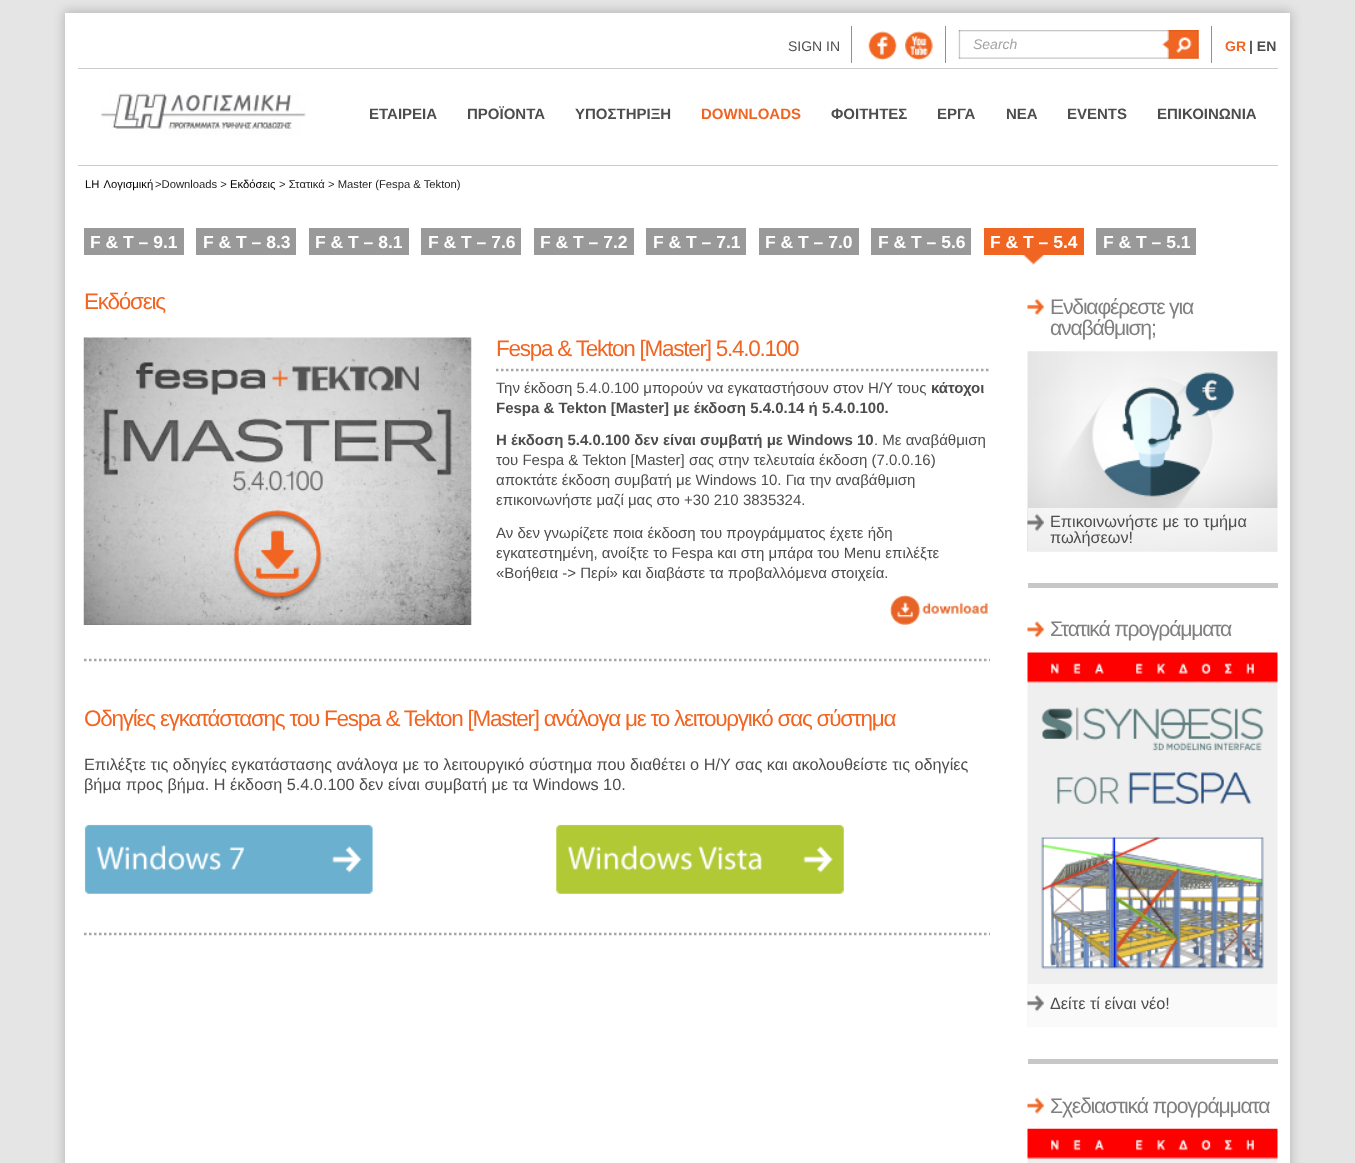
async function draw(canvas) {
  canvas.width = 1355;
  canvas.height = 1163;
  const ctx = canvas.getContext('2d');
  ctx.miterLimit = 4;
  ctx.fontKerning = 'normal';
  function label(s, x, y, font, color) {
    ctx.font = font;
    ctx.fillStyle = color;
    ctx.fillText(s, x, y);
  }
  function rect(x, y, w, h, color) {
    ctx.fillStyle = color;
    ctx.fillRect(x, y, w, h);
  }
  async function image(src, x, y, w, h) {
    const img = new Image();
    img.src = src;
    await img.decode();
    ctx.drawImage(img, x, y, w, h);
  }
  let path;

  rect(0, 0, 1355, 1163, '#e5e5e5');
  ctx.fillStyle = '#00000033';
  ctx.filter = 'blur(5.5px)';
  ctx.beginPath();
  ctx.rect(64, 11, 1227, 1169);
  ctx.fill();
  ctx.filter = 'none';
  rect(65, 13, 1225, 1150, '#fff');
  rect(851, 26, 1, 37, '#918f90');
  label('SIGN IN', 788, 51, '14px Liberation Sans', '#4d4d4d');
  await image('assets/img1.png', 868, 31, 29, 29);
  await image('assets/img2.png', 905, 31, 28, 29);
  rect(945, 26, 1, 37, '#918f90');
  await image('assets/img3.png', 958, 30, 241, 29);
  label('Search', 973, 49, 'italic 14px Liberation Sans', '#a3a3a3');
  await image('assets/img4.png', 1176, 37, 16, 16);
  rect(1211, 26, 1, 37, '#918f90');
  label('GR', 1225, 51, 'bold 14px Liberation Sans', '#f16522');
  label('| EN', 1249, 51, 'bold 14px Liberation Sans', '#4d4d4d');
  rect(78, 68, 1200, 1, '#ccc');
  await image('assets/img5.png', 101, 90, 205, 45);
  label('ΕΤΑΙΡΕΙΑ', 369, 119, 'bold 15px Liberation Sans', '#4d4d4d');
  label('ΠΡΟΪΟΝΤΑ', 467, 119, 'bold 15px Liberation Sans', '#4d4d4d');
  label('ΥΠΟΣΤΗΡΙΞΗ', 575, 119, 'bold 15px Liberation Sans', '#4d4d4d');
  label('DOWNLOADS', 701, 119, 'bold 15px Liberation Sans', '#f16522');
  label('ΦΟΙΤΗΤΕΣ', 831, 119, 'bold 15px Liberation Sans', '#4d4d4d');
  label('ΕΡΓΑ', 937, 119, 'bold 15px Liberation Sans', '#4d4d4d');
  label('ΝΕΑ', 1006, 119, 'bold 15px Liberation Sans', '#4d4d4d');
  label('EVENTS', 1067, 119, 'bold 15px Liberation Sans', '#4d4d4d');
  label('ΕΠΙΚΟΙΝΩΝΙΑ', 1157, 119, 'bold 15px Liberation Sans', '#4d4d4d');
  rect(78, 165, 1200, 1, '#ccc');
  ctx.wordSpacing = '1px';
  label('LH Λογισμική', 85, 188, '11.25px Liberation Sans', '#000');
  ctx.wordSpacing = '0px';
  label('>Downloads >', 155, 188, '11.25px Liberation Sans', '#1d1d1d');
  label('Εκδόσεις', 230, 188, '11.25px Liberation Sans', '#000');
  label('> Στατικά > Master (Fespa & Tekton)', 279, 188, '11.25px Liberation Sans', '#1d1d1d');
  rect(84, 228, 100, 27, '#999');
  label('F & T – 9.1', 90, 248, 'bold 17.5px Liberation Sans', '#fff');
  rect(196, 228, 100, 27, '#999');
  label('F & T – 8.3', 203, 248, 'bold 17.5px Liberation Sans', '#fff');
  rect(309, 228, 100, 27, '#999');
  label('F & T – 8.1', 315, 248, 'bold 17.5px Liberation Sans', '#fff');
  rect(421, 228, 100, 27, '#999');
  label('F & T – 7.6', 428, 248, 'bold 17.5px Liberation Sans', '#fff');
  rect(534, 228, 100, 27, '#999');
  label('F & T – 7.2', 540, 248, 'bold 17.5px Liberation Sans', '#fff');
  rect(646, 228, 100, 27, '#999');
  label('F & T – 7.1', 653, 248, 'bold 17.5px Liberation Sans', '#fff');
  rect(759, 228, 100, 27, '#999');
  label('F & T – 7.0', 765, 248, 'bold 17.5px Liberation Sans', '#fff');
  rect(871, 228, 100, 27, '#999');
  label('F & T – 5.6', 878, 248, 'bold 17.5px Liberation Sans', '#fff');
  rect(984, 228, 100, 27, '#f16522');
  label('F & T – 5.4', 990, 248, 'bold 17.5px Liberation Sans', '#fff');
  await image('assets/img6.png', 1023, 255, 21, 10);
  rect(1096, 228, 100, 27, '#999');
  label('F & T – 5.1', 1103, 248, 'bold 17.5px Liberation Sans', '#fff');
  ctx.letterSpacing = '-1.25px';
  label('Εκδόσεις', 84, 309, '22.5px Liberation Sans', '#f16522');
  await image('assets/img7.png', 83, 337, 389, 288);
  path = new Path2D('M496 370H990');
  ctx.strokeStyle = '#a6a6a6';
  ctx.lineWidth = 2.5;
  ctx.setLineDash([2.5, 2.5]);
  ctx.stroke(path);
  label('Fespa & Tekton [Master] 5.4.0.100', 496, 356, '22.5px Liberation Sans', '#f16522');
  ctx.letterSpacing = '0px';
  label('Την έκδοση 5.4.0.100 μπορούν να εγκαταστήσουν στον Η/Υ τους', 496, 393, '15px Liberation Sans', '#4d4d4d');
  label('κάτοχοι', 931, 393, 'bold 15px Liberation Sans', '#4d4d4d');
  label('Fespa & Tekton [Master] με έκδοση 5.4.0.14 ή 5.4.0.100.', 496, 413, 'bold 15px Liberation Sans', '#4d4d4d');
  label('Η έκδοση 5.4.0.100 δεν είναι συμβατή με Windows 10', 496, 445, 'bold 15px Liberation Sans', '#4d4d4d');
  label('. Με αναβάθμιση', 874, 445, '15px Liberation Sans', '#4d4d4d');
  label('του Fespa & Tekton [Master] σας στην τελευταία έκδοση (7.0.0.16)', 496, 465, '15px Liberation Sans', '#4d4d4d');
  label('αποκτάτε έκδοση συμβατή με Windows 10. Για την αναβάθμιση', 496, 485, '15px Liberation Sans', '#4d4d4d');
  label('επικοινωνήστε μαζί μας στο +30 210 3835324.', 496, 505, '15px Liberation Sans', '#4d4d4d');
  label('Αν δεν γνωρίζετε ποια έκδοση του προγράμματος έχετε ήδη', 496, 538, '15px Liberation Sans', '#4d4d4d');
  label('εγκατεστημένη, ανοίξτε το Fespa και στη μπάρα του Menu επιλέξτε', 496, 558, '15px Liberation Sans', '#4d4d4d');
  label('«Βοήθεια -> Περί» και διαβάστε τα προβαλλόμενα στοιχεία.', 496, 578, '15px Liberation Sans', '#4d4d4d');
  await image('assets/img8.png', 890, 595, 98, 30);
  path = new Path2D('M84 660H990');
  ctx.stroke(path);
  ctx.letterSpacing = '-1.25px';
  label('Οδηγίες εγκατάστασης του Fespa & Tekton [Master] ανάλογα με το λειτουργικό σας σύστημα', 84, 726, '22.5px Liberation Sans', '#f16522');
  ctx.letterSpacing = '0px';
  label('Επιλέξτε τις οδηγίες εγκατάστασης ανάλογα με το λειτουργικό σύστημα που διαθέτει ο Η/Υ σας και ακολουθείστε τις οδηγίες', 84, 770, '16.25px Liberation Sans', '#4d4d4d');
  label('βήμα προς βήμα. Η έκδοση 5.4.0.100 δεν είναι συμβατή με τα Windows 10.', 84, 790, '16.25px Liberation Sans', '#4d4d4d');
  await image('assets/img9.png', 84, 824, 289, 70);
  await image('assets/img10.png', 556, 824, 288, 70);
  path = new Path2D('M84 934H990');
  ctx.stroke(path);
  await image('assets/img11.png', 1027, 298, 17, 17);
  ctx.letterSpacing = '-1.25px';
  label('Ενδιαφέρεστε για', 1050, 314, '21.25px Liberation Sans', '#808080');
  label('αναβάθμιση;', 1050, 335, '21.25px Liberation Sans', '#808080');
  await image('assets/img12.png', 1027, 351, 251, 201);
  rect(1028, 508, 250, 43, '#ffffffb3');
  await image('assets/img13.png', 1027, 513, 17, 19);
  ctx.letterSpacing = '0px';
  label('Επικοινωνήστε με το τμήμα', 1050, 527, '16.25px Liberation Sans', '#4d4d4d');
  label('πωλήσεων!', 1050, 543, '16.25px Liberation Sans', '#4d4d4d');
  rect(1028, 583, 250, 5, '#c7c7c7');
  await image('assets/img14.png', 1027, 621, 17, 17);
  ctx.letterSpacing = '-1.25px';
  label('Στατικά προγράμματα', 1050, 636, '21.25px Liberation Sans', '#808080');
  await image('assets/img15.png', 1027, 652, 251, 376);
  rect(1028, 984, 250, 44, '#ffffffb3');
  await image('assets/img16.png', 1027, 995, 17, 17);
  ctx.letterSpacing = '0px';
  label('Δείτε τί είναι νέο!', 1050, 1009, '16.25px Liberation Sans', '#4d4d4d');
  rect(1028, 1059, 250, 5, '#c7c7c7');
  await image('assets/img17.png', 1027, 1097, 17, 17);
  ctx.letterSpacing = '-1.25px';
  label('Σχεδιαστικά προγράμματα', 1050, 1113, '21.25px Liberation Sans', '#808080');
  await image('assets/img18.png', 1027, 1128, 251, 35);
}

draw(document.querySelector('canvas'));
